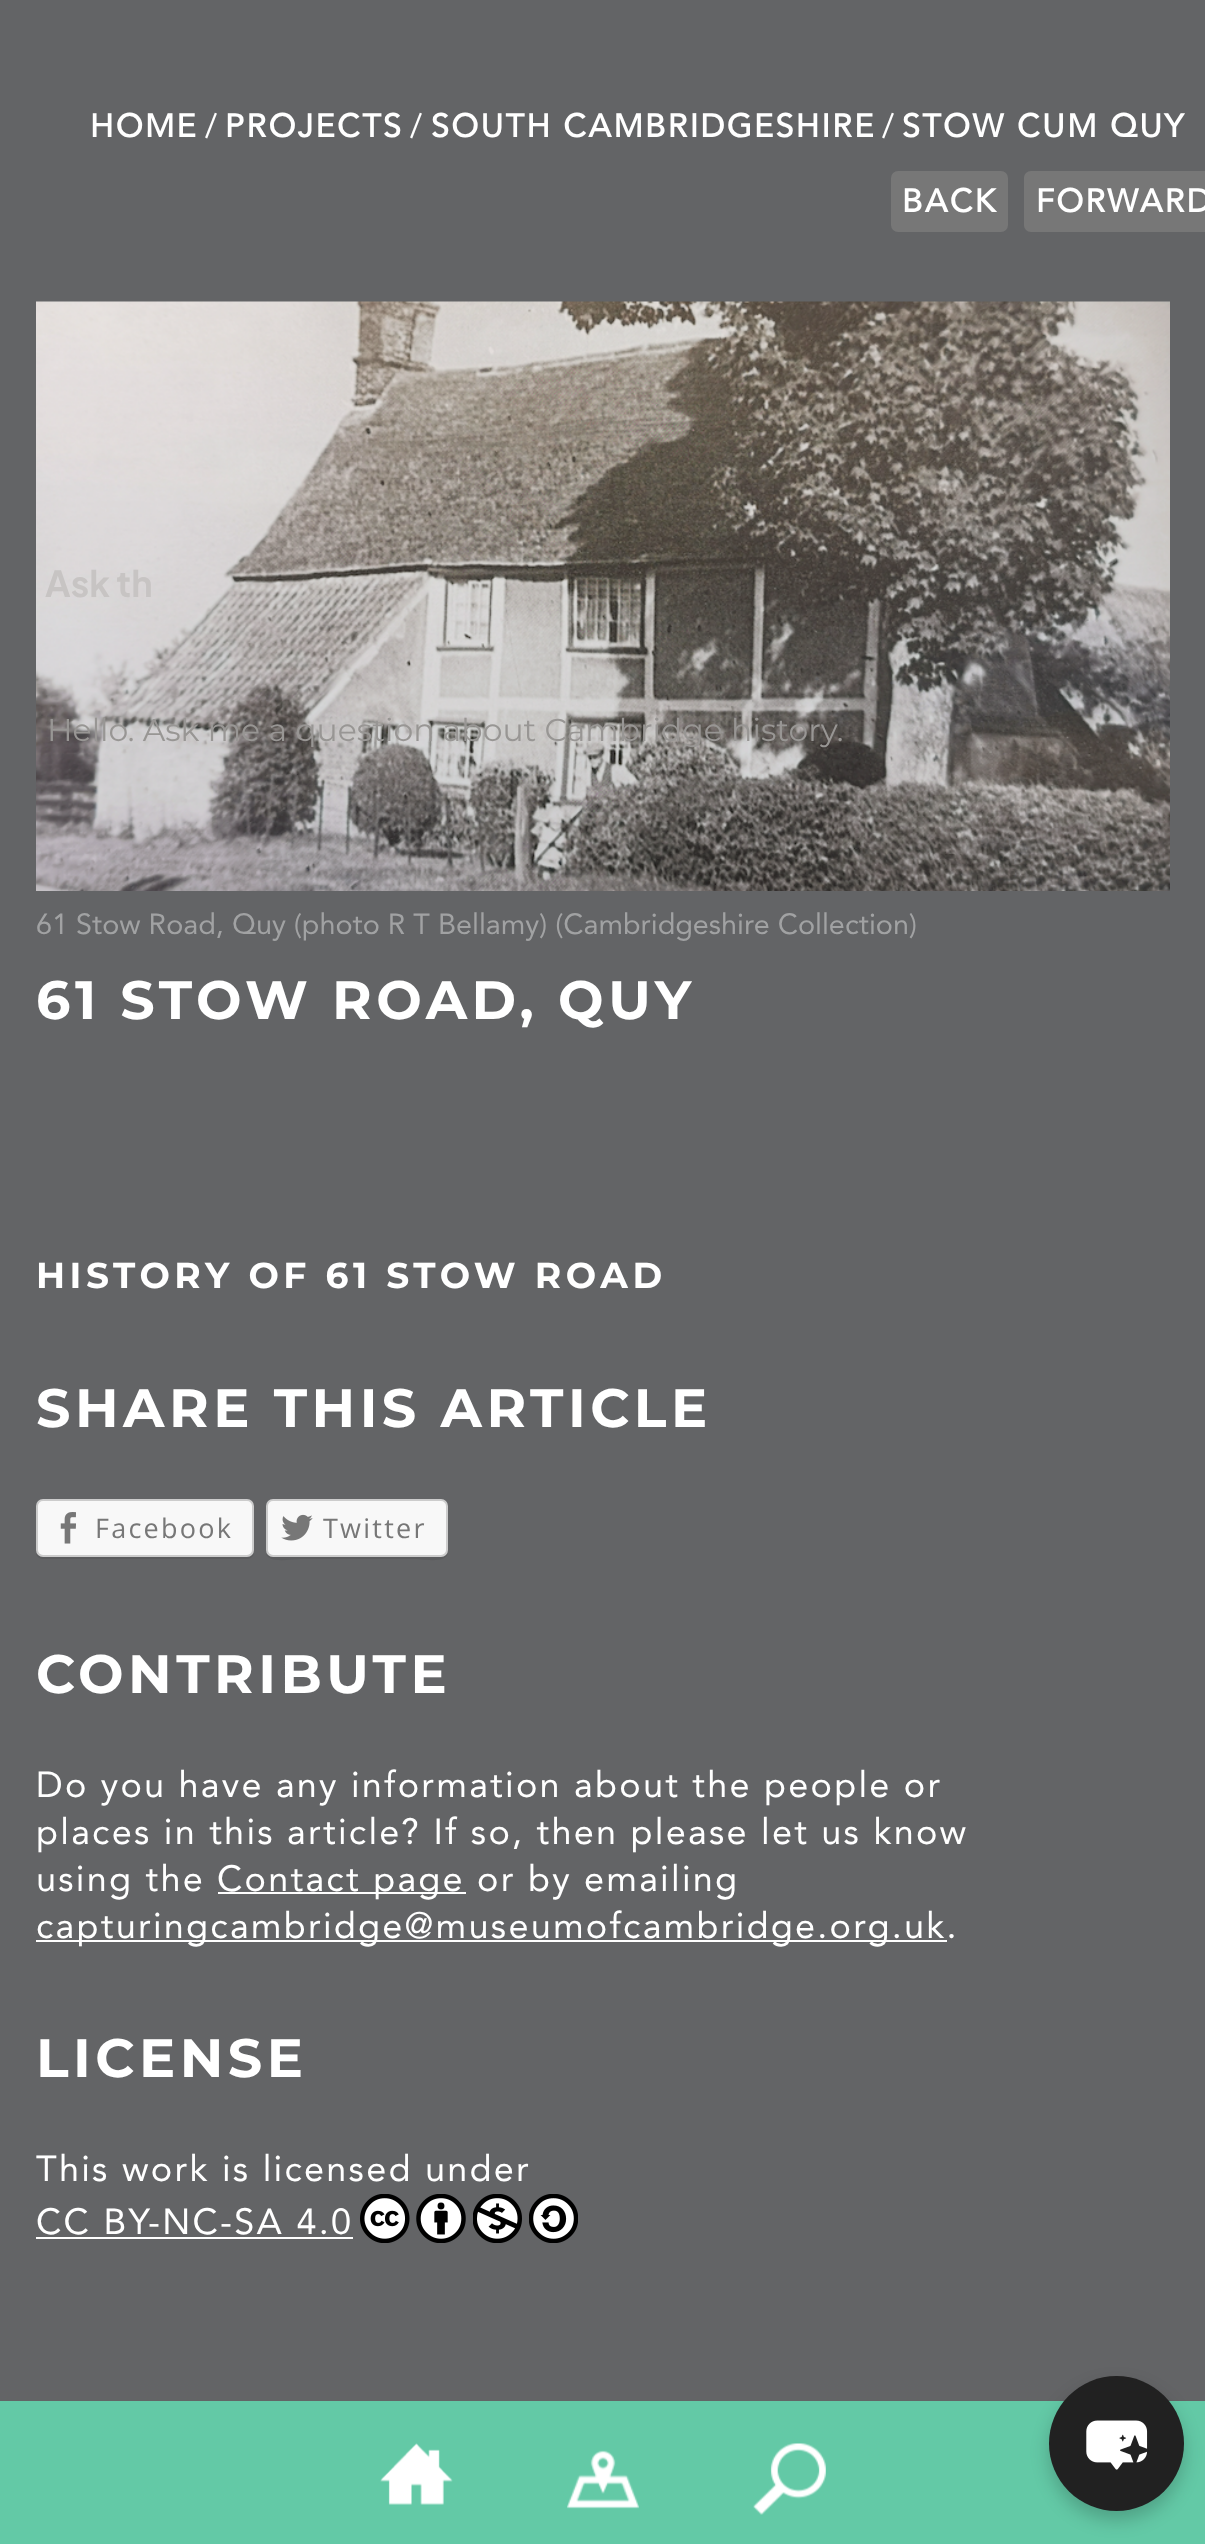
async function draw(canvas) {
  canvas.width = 1205;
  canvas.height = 2544;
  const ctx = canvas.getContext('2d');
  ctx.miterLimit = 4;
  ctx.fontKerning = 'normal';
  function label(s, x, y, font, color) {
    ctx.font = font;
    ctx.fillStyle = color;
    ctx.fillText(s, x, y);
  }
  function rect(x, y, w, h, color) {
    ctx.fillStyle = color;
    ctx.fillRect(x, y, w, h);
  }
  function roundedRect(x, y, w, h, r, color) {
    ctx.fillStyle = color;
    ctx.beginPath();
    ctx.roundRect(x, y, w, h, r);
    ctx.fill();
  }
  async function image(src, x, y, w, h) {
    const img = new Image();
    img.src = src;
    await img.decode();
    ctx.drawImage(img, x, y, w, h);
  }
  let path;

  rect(0, 0, 1205, 2544, '#636466');
  ctx.letterSpacing = '2.25px';
  label('HOME', 90, 137, 'bold 32.4px Avenir', '#fff');
  label('/', 205, 137, '32.4px Avenir', '#fff');
  label('PROJECTS', 225, 137, 'bold 32.4px Avenir', '#fff');
  label('/', 410, 137, '32.4px Avenir', '#fff');
  label('SOUTH CAMBRIDGESHIRE', 431, 137, 'bold 32.4px Avenir', '#fff');
  label('/', 882, 137, '32.4px Avenir', '#fff');
  label('STOW CUM QUY', 902, 137, 'bold 32.4px Avenir', '#fff');
  roundedRect(891, 171, 117, 61, 7, '#777');
  label('BACK', 902, 212, 'bold 32.4px Avenir', '#fff');
  ctx.fillStyle = '#777';
  path = new Path2D('M1031 171H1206V232H1031C1027 232 1024 229 1024 225V178C1024 174 1027 171 1031 171Z');
  ctx.fill(path);
  label('FORWARD', 1036, 212, 'bold 32.4px Avenir', '#fff');
  await image('assets/img1.png', 36, 301, 1134, 590);
  ctx.letterSpacing = '0px';
  label('61 Stow Road, Quy (photo R T Bellamy) (Cambridgeshire Collection)', 36, 934, '28.8px Avenir', '#a1a2a3');
  ctx.letterSpacing = '4.5px';
  label('61 STOW ROAD, QUY', 36, 1019, 'bold 54px Montserrat', '#fff');
  label('HISTORY OF 61 STOW ROAD', 36, 1288, 'bold 36px Montserrat', '#fff');
  label('SHARE THIS ARTICLE', 36, 1427, 'bold 54px Montserrat', '#fff');
  ctx.fillStyle = '#5b5c5e';
  path = new Path2D('M36 1550V1552C36 1556 39 1559 43 1559H247C251 1559 254 1556 254 1552C253 1555 251 1557 248 1557H43C39 1557 36 1554 36 1550Z');
  ctx.fill(path);
  ctx.fillStyle = '#f8f8f8';
  ctx.beginPath();
  ctx.roundRect(37, 1500, 216, 56, 6);
  ctx.fill();
  ctx.strokeStyle = '#ccc';
  ctx.lineWidth = 2;
  ctx.stroke();
  await image('assets/img2.png', 60, 1512, 16, 32);
  ctx.letterSpacing = '2.25px';
  label('Facebook', 95, 1538, '27px Open Sans', '#777');
  ctx.fillStyle = '#5b5c5e';
  path = new Path2D('M266 1553C268 1564 290 1559 301 1559H413C423 1559 446 1564 448 1553V1506V1550C448 1554 445 1557 441 1557H272C269 1557 267 1555 266 1553Z');
  ctx.fill(path);
  ctx.fillStyle = '#f8f8f8';
  ctx.beginPath();
  ctx.roundRect(267, 1500, 180, 56, 6);
  ctx.fill();
  ctx.stroke();
  await image('assets/img3.png', 281, 1514, 32, 27);
  label('Twitter', 323, 1538, '27px Open Sans', '#777');
  ctx.letterSpacing = '4.5px';
  label('CONTRIBUTE', 36, 1693, 'bold 54px Montserrat', '#fff');
  ctx.letterSpacing = '2.25px';
  label('Do you have any information about the people or', 36, 1797, '36px Avenir', '#fff');
  label('places in this article? If so, then please let us know', 36, 1844, '36px Avenir', '#fff');
  label('using the', 36, 1891, '36px Avenir', '#fff');
  rect(218, 1892, 248, 2, '#fff');
  label('Contact page or by emailing', 217, 1891, '36px Avenir', '#fff');
  rect(36, 1940, 911, 2, '#fff');
  label('capturingcambridge@museumofcambridge.org.uk.', 36, 1938, '36px Avenir', '#fff');
  ctx.letterSpacing = '4.5px';
  label('LICENSE', 36, 2077, 'bold 54px Montserrat', '#fff');
  ctx.letterSpacing = '2.25px';
  label('This work is licensed under', 36, 2181, '36px Avenir', '#fff');
  label('CC BY-NC-SA 4.0', 36, 2234, '36px Avenir', '#fff');
  rect(36, 2237, 317, 2, '#fff');
  await image('assets/img4.png', 360, 2194, 50, 49);
  await image('assets/img5.png', 416, 2194, 50, 49);
  await image('assets/img6.png', 473, 2194, 49, 49);
  await image('assets/img7.png', 529, 2194, 49, 49);
  rect(0, 2401, 1205, 143, '#63c9a6');
  await image('assets/img8.png', 380, 2443, 73, 62);
  await image('assets/img9.png', 567, 2450, 72, 59);
  await image('assets/img10.png', 753, 2443, 73, 72);
  ctx.letterSpacing = '0px';
  label('Ask th', 45, 597, 'bold 36px Plus Jakarta Sans', '#c7c4c3');
  label('Hello. Ask me a question about Cambridge history.', 47, 741, '31.5px Montserrat', '#989694');
  ctx.fillStyle = '#00000033';
  ctx.filter = 'blur(9px)';
  ctx.beginPath();
  ctx.roundRect(1049, 2385, 135, 135, 67.5);
  ctx.fill();
  ctx.filter = 'none';
  ctx.fillStyle = '#212121';
  ctx.beginPath();
  ctx.arc(1116.5, 2443.5, 67.5, 0, 2 * Math.PI);
  ctx.fill();
  await image('assets/img11.png', 1086, 2420, 62, 50);
}

draw(document.querySelector('canvas'));
